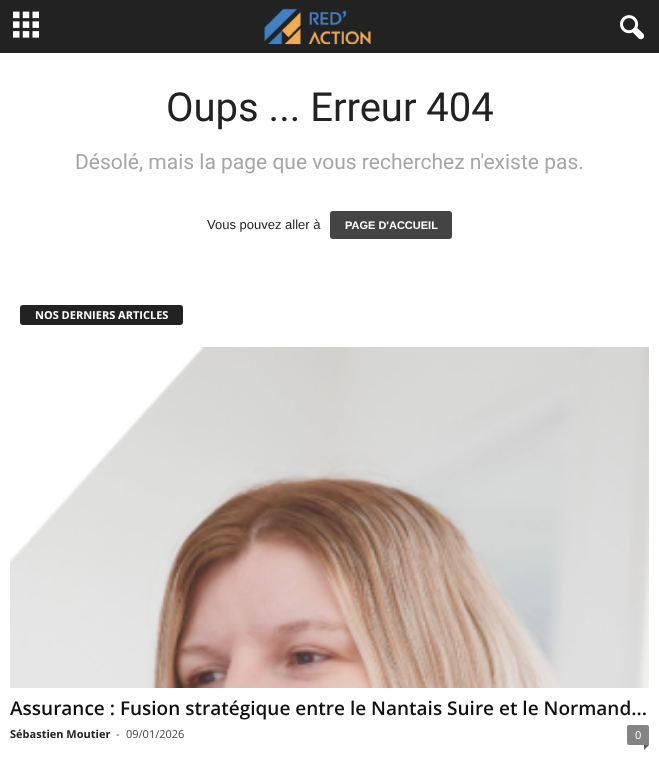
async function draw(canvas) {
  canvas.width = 659;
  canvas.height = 760;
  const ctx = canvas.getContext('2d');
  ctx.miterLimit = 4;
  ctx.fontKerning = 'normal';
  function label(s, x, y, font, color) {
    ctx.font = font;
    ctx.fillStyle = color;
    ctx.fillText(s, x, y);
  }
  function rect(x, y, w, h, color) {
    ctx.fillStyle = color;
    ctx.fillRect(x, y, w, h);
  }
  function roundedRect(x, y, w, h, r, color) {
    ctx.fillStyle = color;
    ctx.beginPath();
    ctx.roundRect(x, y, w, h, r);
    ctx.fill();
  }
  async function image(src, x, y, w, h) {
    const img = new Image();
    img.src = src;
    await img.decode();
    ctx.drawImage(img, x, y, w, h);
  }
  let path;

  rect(0, 0, 659, 760, '#fff');
  rect(0, 0, 659, 53, '#222');
  await image('assets/img1.png', 13, 11, 26, 27);
  await image('assets/img2.png', 264, 8, 108, 37);
  await image('assets/img3.png', 620, 15, 25, 25);
  label('Oups ... Erreur 404', 166, 121, '40px Roboto', '#222');
  label('Désolé, mais la page que vous recherchez n\'existe pas.', 75, 169, '21px Roboto', '#a6a6a6');
  label('Vous pouvez aller à', 207, 229, '13px Liberation Sans', '#222');
  roundedRect(330, 211, 122, 28, 3, '#444');
  label('PAGE D\'ACCUEIL', 345, 229, 'bold 11px Liberation Sans', '#fff');
  roundedRect(20, 305, 163, 20, 3, '#222');
  label('NOS DERNIERS ARTICLES', 35, 319, 'bold 11px Open Sans', '#fff');
  await image('assets/img4.png', 10, 347, 639, 341);
  label('Assurance : Fusion stratégique entre le Nantais Suire et le Normand...', 10, 715, '600 19px Open Sans', '#111');
  label('Sébastien Moutier', 10, 738, 'bold 11px Open Sans', '#222');
  label('-', 116, 738, '11px Open Sans', '#444');
  label('09/01/2026', 126, 738, '11px Open Sans', '#444');
  ctx.fillStyle = '#848484';
  ctx.beginPath();
  ctx.roundRect(627, 725, 22, 20, [2, 2, 0, 2]);
  ctx.fill();
  label('0', 635, 739, '11px Open Sans', '#fff');
  ctx.fillStyle = '#5b5b5b';
  path = new Path2D('M644 745H649L644 750Z');
  ctx.fill(path);
}

draw(document.querySelector('canvas'));
